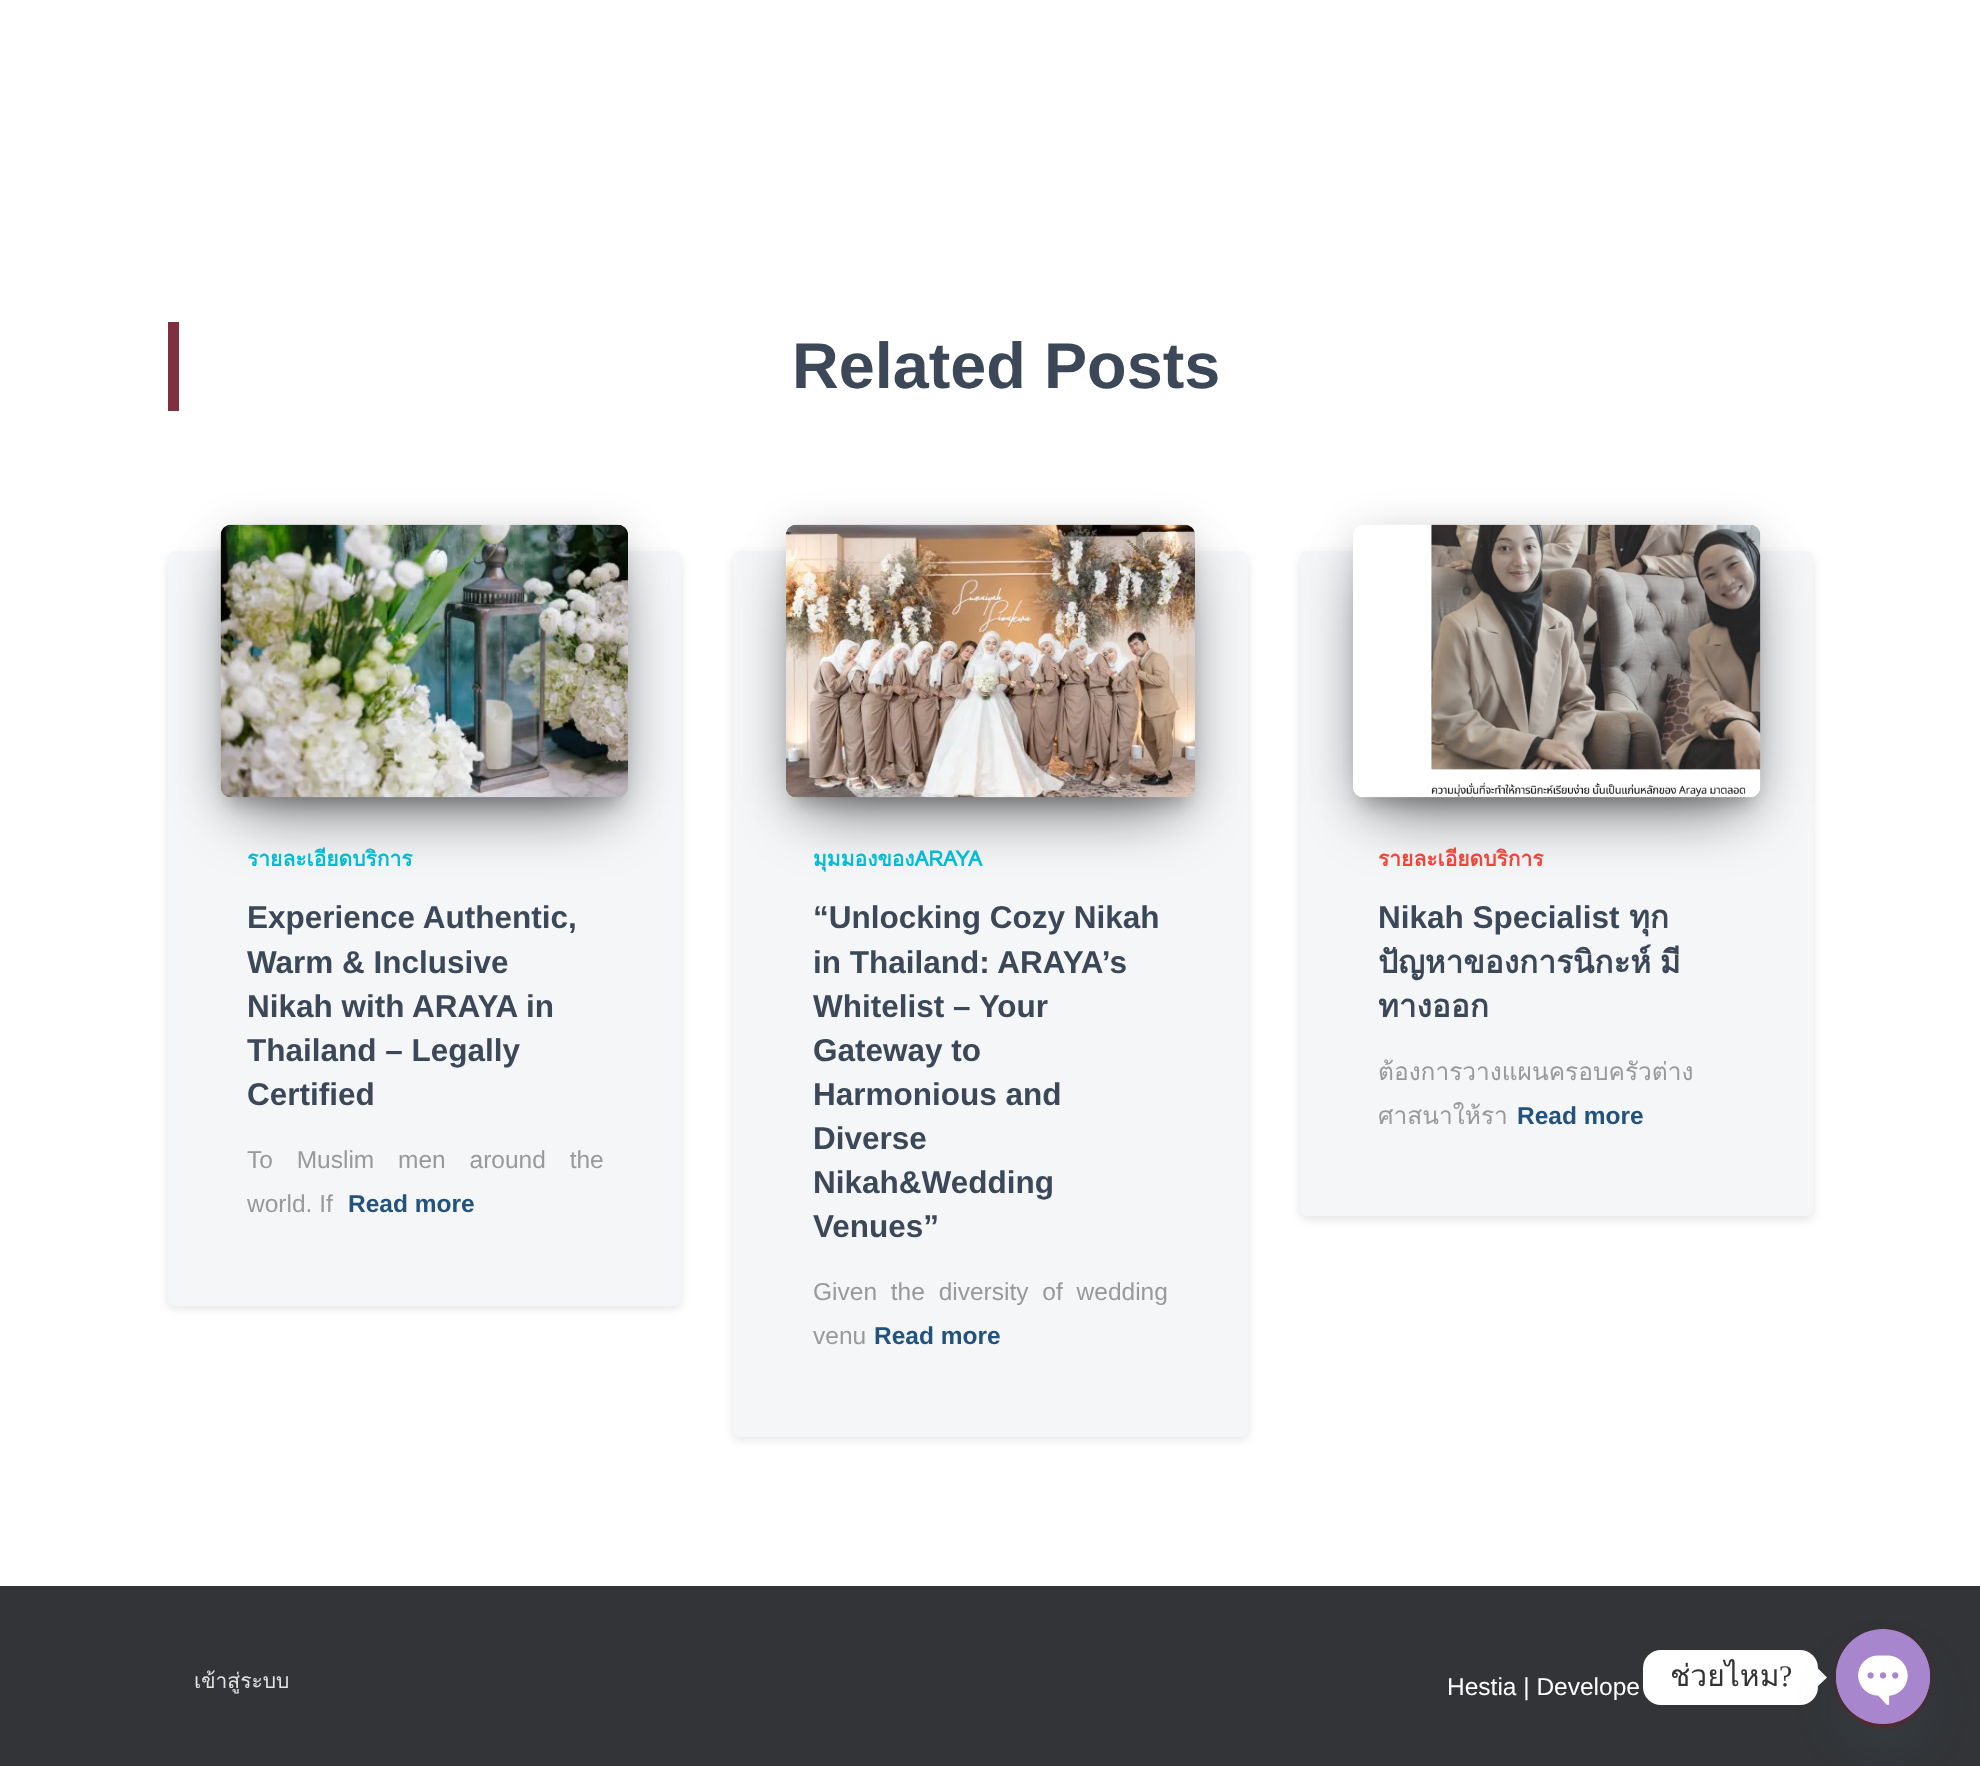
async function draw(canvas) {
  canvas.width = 1980;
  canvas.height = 1766;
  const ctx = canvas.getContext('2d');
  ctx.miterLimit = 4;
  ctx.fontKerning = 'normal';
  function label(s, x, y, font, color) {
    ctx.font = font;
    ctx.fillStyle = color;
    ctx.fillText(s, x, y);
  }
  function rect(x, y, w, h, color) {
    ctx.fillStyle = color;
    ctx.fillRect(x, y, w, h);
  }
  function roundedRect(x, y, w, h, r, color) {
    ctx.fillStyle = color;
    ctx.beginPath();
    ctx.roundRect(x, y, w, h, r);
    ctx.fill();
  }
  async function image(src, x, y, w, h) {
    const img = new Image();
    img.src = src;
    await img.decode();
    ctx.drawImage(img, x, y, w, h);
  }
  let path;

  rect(0, 0, 1980, 1766, '#fff');
  rect(168, 322, 11, 89, '#7e2f40');
  label('Related Posts', 792, 388, 'bold 64.75px Liberation Sans', '#3c4858');
  ctx.fillStyle = '#0000001a';
  ctx.filter = 'blur(5px)';
  ctx.beginPath();
  ctx.roundRect(168, 555, 513, 754, 7);
  ctx.fill();
  ctx.filter = 'none';
  roundedRect(168, 551, 513, 755, 7, '#f4f6f8');
  ctx.fillStyle = '#00000033';
  ctx.filter = 'blur(9px)';
  ctx.beginPath();
  ctx.roundRect(229, 548, 391, 255, 2);
  ctx.fill();
  ctx.filter = 'none';
  ctx.fillStyle = '#0000001f';
  ctx.filter = 'blur(22px)';
  ctx.beginPath();
  ctx.roundRect(221, 532, 407, 273, 11);
  ctx.fill();
  ctx.filter = 'none';
  ctx.fillStyle = '#0000008f';
  ctx.filter = 'blur(33px)';
  ctx.beginPath();
  ctx.rect(242, 574, 365, 231);
  ctx.fill();
  ctx.filter = 'none';
  await image('assets/img1.png', 220, 524, 408, 274);
  label('รายละเอียดบริการ', 247, 866, 'bold 21px Loma', '#00bcd4');
  label('Experience Authentic,', 247, 928, 'bold 31.5px Liberation Sans', '#3c4858');
  label('Warm & Inclusive', 247, 973, 'bold 31.5px Liberation Sans', '#3c4858');
  label('Nikah with ARAYA in', 247, 1017, 'bold 31.5px Liberation Sans', '#3c4858');
  label('Thailand – Legally', 247, 1061, 'bold 31.5px Liberation Sans', '#3c4858');
  label('Certified', 247, 1105, 'bold 31.5px Liberation Sans', '#3c4858');
  ctx.wordSpacing = '17px';
  label('To Muslim men around the', 247, 1168, '24.5px Liberation Sans', '#999');
  ctx.wordSpacing = '0px';
  label('world. If', 247, 1212, '24.5px Liberation Sans', '#999');
  label('Read more', 348, 1212, 'bold 24.5px Liberation Sans', '#23527c');
  ctx.fillStyle = '#0000001a';
  ctx.filter = 'blur(5px)';
  ctx.beginPath();
  ctx.roundRect(733, 555, 515, 885, 7);
  ctx.fill();
  ctx.filter = 'none';
  roundedRect(733, 551, 515, 886, 7, '#f4f6f8');
  ctx.fillStyle = '#00000033';
  ctx.filter = 'blur(9px)';
  ctx.beginPath();
  ctx.roundRect(795, 548, 392, 255, 2);
  ctx.fill();
  ctx.filter = 'none';
  ctx.fillStyle = '#0000001f';
  ctx.filter = 'blur(22px)';
  ctx.beginPath();
  ctx.roundRect(786, 532, 409, 273, 11);
  ctx.fill();
  ctx.filter = 'none';
  ctx.fillStyle = '#0000008f';
  ctx.filter = 'blur(33px)';
  ctx.beginPath();
  ctx.rect(807, 574, 367, 231);
  ctx.fill();
  ctx.filter = 'none';
  await image('assets/img2.png', 786, 524, 409, 274);
  label('มุมมองของARAYA', 813, 866, 'bold 21px Loma', '#00bcd4');
  label('“Unlocking Cozy Nikah', 813, 928, 'bold 31.5px Liberation Sans', '#3c4858');
  label('in Thailand: ARAYA’s', 813, 973, 'bold 31.5px Liberation Sans', '#3c4858');
  label('Whitelist – Your', 813, 1017, 'bold 31.5px Liberation Sans', '#3c4858');
  label('Gateway to', 813, 1061, 'bold 31.5px Liberation Sans', '#3c4858');
  label('Harmonious and', 813, 1105, 'bold 31.5px Liberation Sans', '#3c4858');
  label('Diverse', 813, 1149, 'bold 31.5px Liberation Sans', '#3c4858');
  label('Nikah&Wedding', 813, 1193, 'bold 31.5px Liberation Sans', '#3c4858');
  label('Venues”', 813, 1237, 'bold 31.5px Liberation Sans', '#3c4858');
  ctx.wordSpacing = '7px';
  label('Given the diversity of wedding', 813, 1300, '24.5px Liberation Sans', '#999');
  ctx.wordSpacing = '0px';
  label('venu', 813, 1344, '24.5px Liberation Sans', '#999');
  label('Read more', 874, 1344, 'bold 24.5px Liberation Sans', '#23527c');
  ctx.fillStyle = '#0000001a';
  ctx.filter = 'blur(5px)';
  ctx.beginPath();
  ctx.roundRect(1300, 555, 513, 665, 7);
  ctx.fill();
  ctx.filter = 'none';
  roundedRect(1300, 551, 513, 665, 7, '#f4f6f8');
  ctx.fillStyle = '#00000033';
  ctx.filter = 'blur(9px)';
  ctx.beginPath();
  ctx.roundRect(1362, 548, 390, 255, 2);
  ctx.fill();
  ctx.filter = 'none';
  ctx.fillStyle = '#0000001f';
  ctx.filter = 'blur(22px)';
  ctx.beginPath();
  ctx.roundRect(1353, 532, 408, 273, 11);
  ctx.fill();
  ctx.filter = 'none';
  ctx.fillStyle = '#0000008f';
  ctx.filter = 'blur(33px)';
  ctx.beginPath();
  ctx.rect(1374, 574, 366, 231);
  ctx.fill();
  ctx.filter = 'none';
  await image('assets/img3.png', 1353, 524, 408, 274);
  label('รายละเอียดบริการ', 1378, 866, 'bold 21px Loma', '#f44336');
  label('Nikah Specialist', 1378, 928, 'bold 31.5px Liberation Sans', '#3c4858');
  label('ทุก', 1629, 928, 'bold 31.5px Loma', '#3c4858');
  ctx.wordSpacing = '-2px';
  label('ปัญหาของการนิกะห์ มี', 1378, 973, 'bold 31.5px Loma', '#3c4858');
  ctx.wordSpacing = '0px';
  label('ทางออก', 1378, 1017, 'bold 31.5px Loma', '#3c4858');
  label('ต้องการวางแผนครอบครัวต่าง', 1378, 1080, '24.5px Loma', '#999');
  label('ศาสนาให้รา', 1378, 1124, '24.5px Loma', '#999');
  label('Read more', 1517, 1124, 'bold 24.5px Liberation Sans', '#23527c');
  rect(0, 1586, 1980, 180, '#323437');
  label('เข้าสู่ระบบ', 194, 1688, '21px Loma', '#e2e3e3');
  label('Hestia | Develope', 1447, 1695, '24.5px Liberation Sans', '#fff');
  roundedRect(1643, 1650, 175, 55, 18, '#fff');
  label('ช่วยไหม', 1670, 1686, '30px Loma', '#333');
  label('?', 1779, 1686, '30px Liberation Serif', '#333');
  ctx.fillStyle = '#fff';
  path = new Path2D('M1818 1686V1668.5L1827 1677.5Z');
  ctx.fill(path);
  ctx.fillStyle = '#49687e29';
  ctx.filter = 'blur(21px)';
  ctx.beginPath();
  ctx.roundRect(1836, 1657, 94, 95, 47);
  ctx.fill();
  ctx.filter = 'none';
  ctx.fillStyle = '#ad00001f';
  ctx.filter = 'blur(4.5px)';
  ctx.beginPath();
  ctx.roundRect(1836, 1631, 94, 95, 47);
  ctx.fill();
  ctx.filter = 'none';
  ctx.fillStyle = '#ad000033';
  ctx.filter = 'blur(1px)';
  ctx.beginPath();
  ctx.roundRect(1839, 1638, 88, 88, 44);
  ctx.fill();
  ctx.filter = 'none';
  ctx.fillStyle = '#ad000024';
  ctx.filter = 'blur(2px)';
  ctx.beginPath();
  ctx.roundRect(1836, 1633, 94, 94, 47);
  ctx.fill();
  ctx.filter = 'none';
  roundedRect(1836, 1629, 94, 95, 47, '#a886cd');
  await image('assets/img4.png', 1836, 1635, 94, 89);
}

draw(document.querySelector('canvas'));
